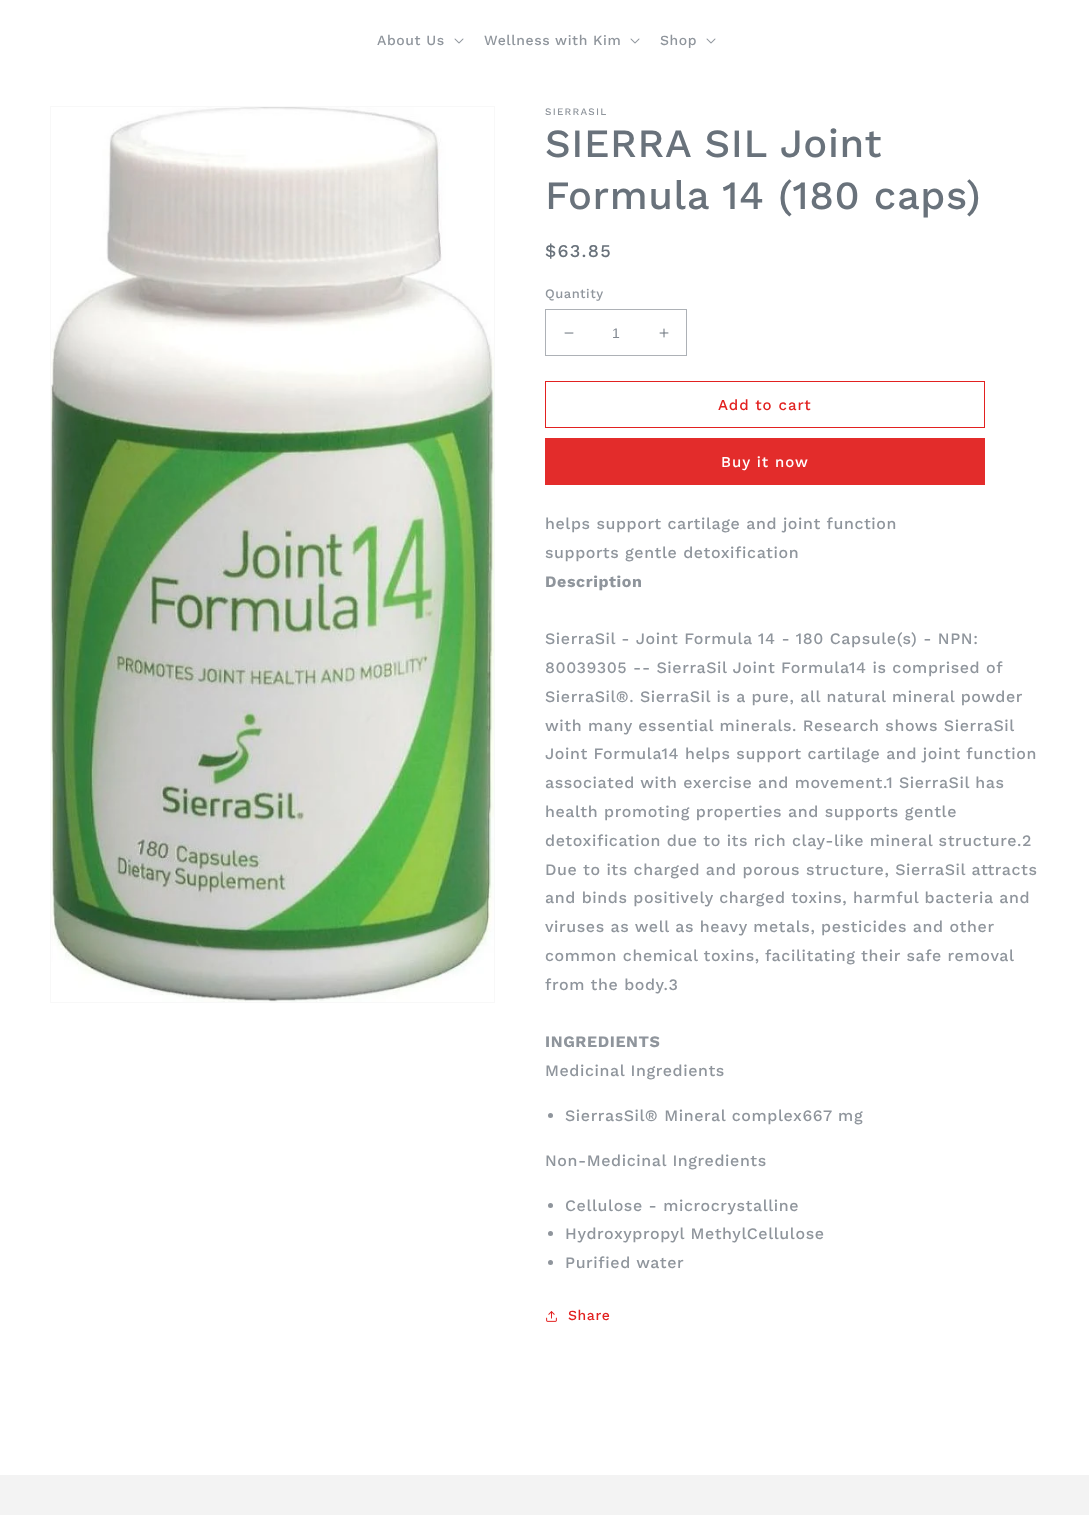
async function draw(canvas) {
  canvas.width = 1089;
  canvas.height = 1515;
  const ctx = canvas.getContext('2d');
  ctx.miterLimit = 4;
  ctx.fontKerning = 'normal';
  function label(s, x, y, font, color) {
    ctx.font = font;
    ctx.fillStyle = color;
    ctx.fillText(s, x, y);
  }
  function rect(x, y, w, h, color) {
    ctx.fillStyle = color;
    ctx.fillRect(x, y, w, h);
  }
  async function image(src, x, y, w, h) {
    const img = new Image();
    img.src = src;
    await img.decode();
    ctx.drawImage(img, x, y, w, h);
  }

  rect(0, 0, 1089, 1515, '#fff');
  ctx.letterSpacing = '0.6px';
  label('About Us', 377, 45, '500 14px Work Sans', '#8f959c');
  await image('assets/img1.png', 454, 38, 10, 6);
  label('Wellness with Kim', 484, 45, '500 14px Work Sans', '#8f959c');
  await image('assets/img1.png', 630, 38, 10, 6);
  label('Shop', 660, 45, '500 14px Work Sans', '#8f959c');
  await image('assets/img1.png', 706, 38, 10, 6);
  ctx.strokeStyle = '#f8f8f8';
  ctx.strokeRect(50.5, 106.5, 444, 896);
  await image('assets/img2.png', 51, 107, 443, 895);
  ctx.letterSpacing = '1.25px';
  label('SIERRASIL', 545, 115, '500 10px Work Sans', '#8f959c');
  ctx.letterSpacing = '0.6px';
  label('SIERRA SIL Joint', 545, 157, '500 40px Work Sans', '#69727b');
  label('Formula 14 (180 caps)', 545, 209, '500 40px Work Sans', '#69727b');
  ctx.letterSpacing = '1.25px';
  label('$63.85', 545, 257, '500 18px Work Sans', '#69727b');
  ctx.letterSpacing = '0.5px';
  label('Quantity', 545, 298, '500 13px Work Sans', '#8f959c');
  await image('assets/img3.png', 564, 332, 10, 2);
  await image('assets/img4.png', 659, 328, 10, 10);
  ctx.strokeStyle = '#adb1b6';
  ctx.strokeRect(545.5, 309.5, 141, 46);
  ctx.letterSpacing = '0px';
  label('1', 612, 338, '14px Liberation Sans', '#80878f');
  ctx.strokeStyle = '#e22120';
  ctx.strokeRect(545.5, 381.5, 439, 46);
  ctx.letterSpacing = '1px';
  label('Add to cart', 718, 410, '500 15px Work Sans', '#e22120');
  rect(545, 438, 440, 47, '#e32c2b');
  label('Buy it now', 721, 467, '500 15px Work Sans', '#fff');
  ctx.letterSpacing = '0.6px';
  label('helps support cartilage and joint function', 545, 529, '500 16px Work Sans', '#8f959c');
  label('supports gentle detoxification', 545, 558, '500 16px Work Sans', '#8f959c');
  label('Description', 545, 587, 'bold 16px Work Sans', '#8f959c');
  label('SierraSil - Joint Formula 14 - 180 Capsule(s) - NPN:', 545, 644, '500 16px Work Sans', '#8f959c');
  label('80039305 -- SierraSil Joint Formula14 is comprised of', 545, 673, '500 16px Work Sans', '#8f959c');
  label('SierraSil®. SierraSil is a pure, all natural mineral powder', 545, 702, '500 16px Work Sans', '#8f959c');
  label('with many essential minerals. Research shows SierraSil', 545, 731, '500 16px Work Sans', '#8f959c');
  label('Joint Formula14 helps support cartilage and joint function', 545, 759, '500 16px Work Sans', '#8f959c');
  label('associated with exercise and movement.1 SierraSil has', 545, 788, '500 16px Work Sans', '#8f959c');
  label('health promoting properties and supports gentle', 545, 817, '500 16px Work Sans', '#8f959c');
  label('detoxification due to its rich clay-like mineral structure.2', 545, 846, '500 16px Work Sans', '#8f959c');
  label('Due to its charged and porous structure, SierraSil attracts', 545, 875, '500 16px Work Sans', '#8f959c');
  label('and binds positively charged toxins, harmful bacteria and', 545, 903, '500 16px Work Sans', '#8f959c');
  label('viruses as well as heavy metals,', 545, 932, '500 16px Work Sans', '#8f959c');
  label('pesticides and other', 821, 932, '500 16px Work Sans', '#8f959c');
  label('common chemical toxins,', 545, 961, '500 16px Work Sans', '#8f959c');
  label('facilitating their safe removal', 765, 961, '500 16px Work Sans', '#8f959c');
  label('from the body.3', 545, 990, '500 16px Work Sans', '#8f959c');
  label('INGREDIENTS', 545, 1047, 'bold 16px Work Sans', '#8f959c');
  label('Medicinal Ingredients', 545, 1076, '500 16px Work Sans', '#8f959c');
  ctx.beginPath();
  ctx.arc(550.5, 1115.5, 2.5, 0, 2 * Math.PI);
  ctx.fill();
  label('SierrasSil® Mineral complex667 mg', 565, 1121, '500 16px Work Sans', '#8f959c');
  label('Non-Medicinal Ingredients', 545, 1166, '500 16px Work Sans', '#8f959c');
  ctx.beginPath();
  ctx.arc(550.5, 1205.5, 2.5, 0, 2 * Math.PI);
  ctx.fill();
  label('Cellulose - microcrystalline', 565, 1211, '500 16px Work Sans', '#8f959c');
  ctx.beginPath();
  ctx.arc(550.5, 1233.5, 2.5, 0, 2 * Math.PI);
  ctx.fill();
  label('Hydroxypropyl MethylCellulose', 565, 1239, '500 16px Work Sans', '#8f959c');
  ctx.beginPath();
  ctx.arc(550.5, 1262.5, 2.5, 0, 2 * Math.PI);
  ctx.fill();
  label('Purified water', 565, 1268, '500 16px Work Sans', '#8f959c');
  await image('assets/img5.png', 546, 1311, 11, 11);
  label('Share', 568, 1320, '500 14px Work Sans', '#e22120');
  rect(0, 1475, 1089, 40, '#f3f3f3');
}

draw(document.querySelector('canvas'));
